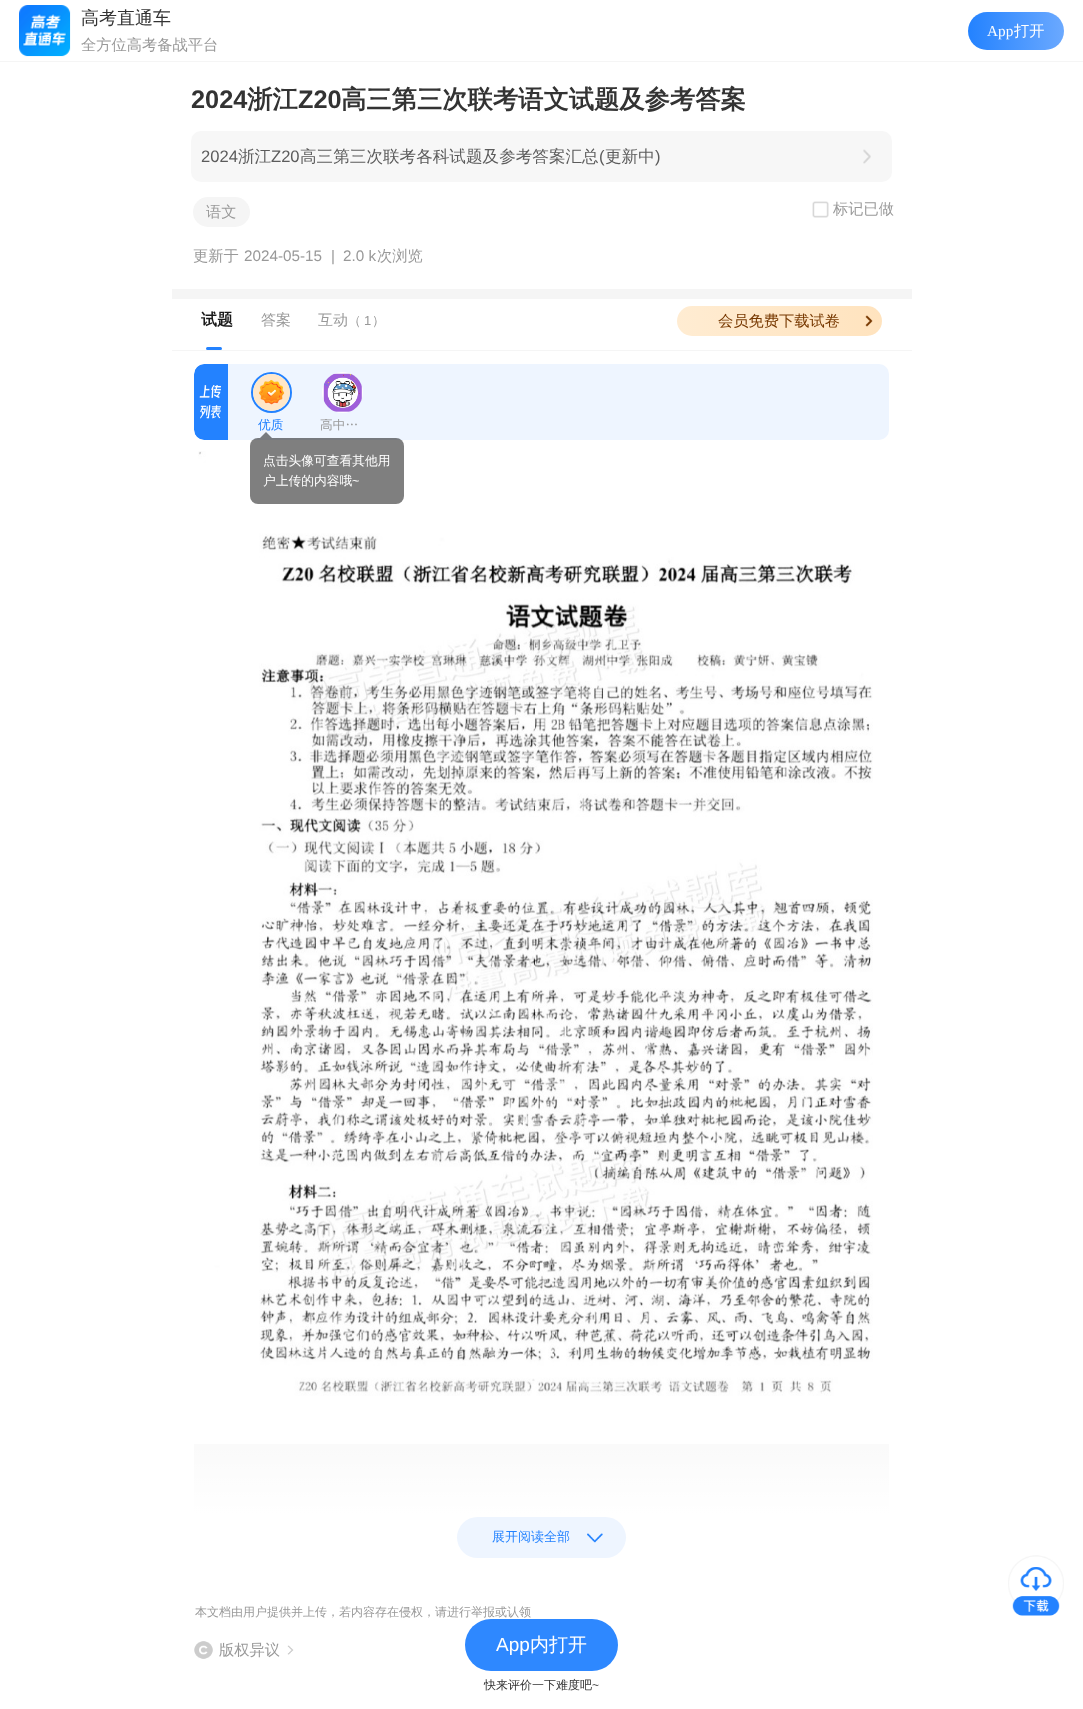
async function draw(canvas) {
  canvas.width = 1083;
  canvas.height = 1709;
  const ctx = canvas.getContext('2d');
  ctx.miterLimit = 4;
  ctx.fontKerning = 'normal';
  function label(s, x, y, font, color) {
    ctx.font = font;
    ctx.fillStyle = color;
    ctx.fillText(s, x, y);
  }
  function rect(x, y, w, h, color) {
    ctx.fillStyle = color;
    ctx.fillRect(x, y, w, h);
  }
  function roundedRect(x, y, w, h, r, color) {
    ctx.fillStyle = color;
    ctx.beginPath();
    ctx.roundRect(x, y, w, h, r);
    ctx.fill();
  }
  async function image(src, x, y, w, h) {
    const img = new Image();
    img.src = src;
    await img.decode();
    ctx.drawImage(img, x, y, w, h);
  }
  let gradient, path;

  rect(0, 0, 1083, 1709, '#fff');
  rect(0, 61, 1083, 1, '#f5f5f5');
  await image('assets/img1.png', 19, 5, 52, 52);
  label('高考直通车', 81, 24, '500 18px WenQuanYi Zen Hei', '#333');
  label('全方位高考备战平台', 81, 50, '500 15.25px WenQuanYi Zen Hei', '#999');
  gradient = ctx.createLinearGradient(1064, 31, 968, 31);
  gradient.addColorStop(0, '#6ba9ff');
  gradient.addColorStop(1, '#2382ff');
  ctx.fillStyle = gradient;
  ctx.beginPath();
  ctx.roundRect(968, 12, 96, 38, 19);
  ctx.fill();
  label('App', 987, 36, '15.25px Liberation Serif', '#fff');
  label('打开', 1014, 36, '500 15.25px WenQuanYi Zen Hei', '#fff');
  label('2024', 191, 108, 'bold 25.3px Liberation Sans', '#333');
  label('浙江', 247, 108, 'bold 25.3px WenQuanYi Zen Hei', '#333');
  label('Z20', 298, 108, 'bold 25.3px Liberation Sans', '#333');
  label('高三第三次联考语文试题及参考答案', 341, 108, 'bold 25.3px WenQuanYi Zen Hei', '#333');
  roundedRect(191, 131, 701, 51, 10, '#f7f7f7');
  label('2024', 201, 162, '16.6px Liberation Sans', '#5c5c5c');
  label('浙江', 238, 162, '500 16.6px WenQuanYi Zen Hei', '#5c5c5c');
  label('Z20', 271, 162, '16.6px Liberation Sans', '#5c5c5c');
  label('高三第三次联考各科试题及参考答案汇总', 300, 162, '500 16.6px WenQuanYi Zen Hei', '#5c5c5c');
  label('(', 599, 162, '16.6px Liberation Sans', '#5c5c5c');
  label('更新中', 605, 162, '500 16.6px WenQuanYi Zen Hei', '#5c5c5c');
  label(')', 655, 162, '16.6px Liberation Sans', '#5c5c5c');
  await image('assets/img2.png', 863, 149, 8, 15);
  roundedRect(193, 197, 57, 30, 15, '#f5f5f5');
  label('语文', 206, 217, '500 15.25px WenQuanYi Zen Hei', '#999');
  await image('assets/img3.png', 812, 201, 17, 17);
  label('标记已做', 833, 214, '500 15.25px WenQuanYi Zen Hei', '#999');
  label('更新于', 193, 261, '500 15.25px WenQuanYi Zen Hei', '#999');
  label('2024-05-15', 244, 261, '15.25px Liberation Sans', '#999');
  label('|', 331, 261, '15.25px Liberation Sans', '#999');
  label('2.0 k', 343, 261, '15.25px Liberation Sans', '#999');
  label('次浏览', 377, 261, '500 15.25px WenQuanYi Zen Hei', '#999');
  rect(172, 350, 740, 1, '#f5f5f5');
  rect(172, 289, 740, 10, '#f5f5f5');
  label('试题', 201, 325, 'bold 16px WenQuanYi Zen Hei', '#1a1a1a');
  label('答案', 261, 325, '500 15px WenQuanYi Zen Hei', '#999');
  label('互动', 318, 325, '500 15px WenQuanYi Zen Hei', '#999');
  label('（', 348, 325, '500 13px WenQuanYi Zen Hei', '#999');
  label('1', 364, 325, '13px Liberation Sans', '#999');
  label('）', 372, 325, '500 13px WenQuanYi Zen Hei', '#999');
  gradient = ctx.createLinearGradient(677, 321, 882, 321);
  gradient.addColorStop(0, '#ffecd2');
  gradient.addColorStop(1, '#ffe3be');
  ctx.fillStyle = gradient;
  ctx.beginPath();
  ctx.roundRect(677, 306, 205, 30, 15);
  ctx.fill();
  label('会员免费下载试卷', 718, 326, '500 15.25px WenQuanYi Zen Hei', '#773800');
  await image('assets/img4.png', 865, 315, 8, 12);
  roundedRect(206, 347, 16, 3, 1.5, '#2382ff');
  await image('assets/img5.png', 194, 364, 34, 76);
  ctx.fillStyle = '#eef5ff';
  ctx.beginPath();
  ctx.roundRect(228, 364, 661, 76, [0, 10, 10, 0]);
  ctx.fill();
  ctx.beginPath();
  ctx.arc(271.5, 392.5, 19.5, 0, 2 * Math.PI);
  ctx.strokeStyle = '#2382ff';
  ctx.lineWidth = 2;
  ctx.stroke();
  await image('assets/img6.png', 253, 374, 37, 37);
  ctx.save();
  ctx.beginPath();
  ctx.rect(248, 419, 46, 12);
  ctx.clip();
  label('优质', 258, 429, '500 12.75px WenQuanYi Zen Hei', '#2382ff');
  ctx.restore();
  await image('assets/img7.png', 322, 372, 41, 41);
  ctx.save();
  ctx.beginPath();
  ctx.rect(320, 419, 46, 12);
  ctx.clip();
  label('高中…', 320, 429, '500 12.75px WenQuanYi Zen Hei', '#999');
  ctx.restore();
  await image('assets/img8.png', 198, 451, 675, 945);
  roundedRect(250, 438, 154, 66, 8, '#00000080');
  ctx.fillStyle = '#777b80';
  path = new Path2D('M272 438H260L266 432Z');
  ctx.fill(path);
  label('点击头像可查看其他用', 263, 465, '500 12.75px WenQuanYi Zen Hei', '#fff');
  label('户上传的内容哦', 263, 485, '500 12.75px WenQuanYi Zen Hei', '#fff');
  label('~', 352, 485, '12.75px Liberation Sans', '#fff');
  rect(194, 1444, 695, 69, '#f5f5f5');
  gradient = ctx.createLinearGradient(542, 1372, 542, 1558);
  gradient.addColorStop(0, '#ffffff00');
  gradient.addColorStop(0.76, '#fff');
  ctx.fillStyle = gradient;
  ctx.beginPath();
  ctx.roundRect(172, 1372, 740, 186, 5);
  ctx.fill();
  roundedRect(457, 1517, 169, 41, 20.5, '#eef5ff');
  await image('assets/img9.png', 587, 1533, 16, 10);
  label('展开阅读全部', 492, 1541, '500 13px WenQuanYi Zen Hei', '#2382ff');
  label('本文档由用户提供并上传，若内容存在侵权，请进行举报或认领', 195, 1616, '500 12px WenQuanYi Zen Hei', '#999');
  await image('assets/img10.png', 194, 1641, 19, 18);
  label('版权异议', 219, 1655, '500 15.25px WenQuanYi Zen Hei', '#999');
  await image('assets/img11.png', 287, 1645, 7, 10);
  label('快来评价一下难度吧', 484, 1689, '500 12px WenQuanYi Zen Hei', '#333');
  label('~', 592, 1689, '12px Liberation Sans', '#333');
  await image('assets/img12.png', 1008, 1555, 56, 61);
  roundedRect(465, 1619, 153, 52, 26, '#2e88ff');
  label('App', 496, 1651, '19px Liberation Sans', '#fff');
  label('内打开', 530, 1651, '500 19px WenQuanYi Zen Hei', '#fff');
}

draw(document.querySelector('canvas'));
